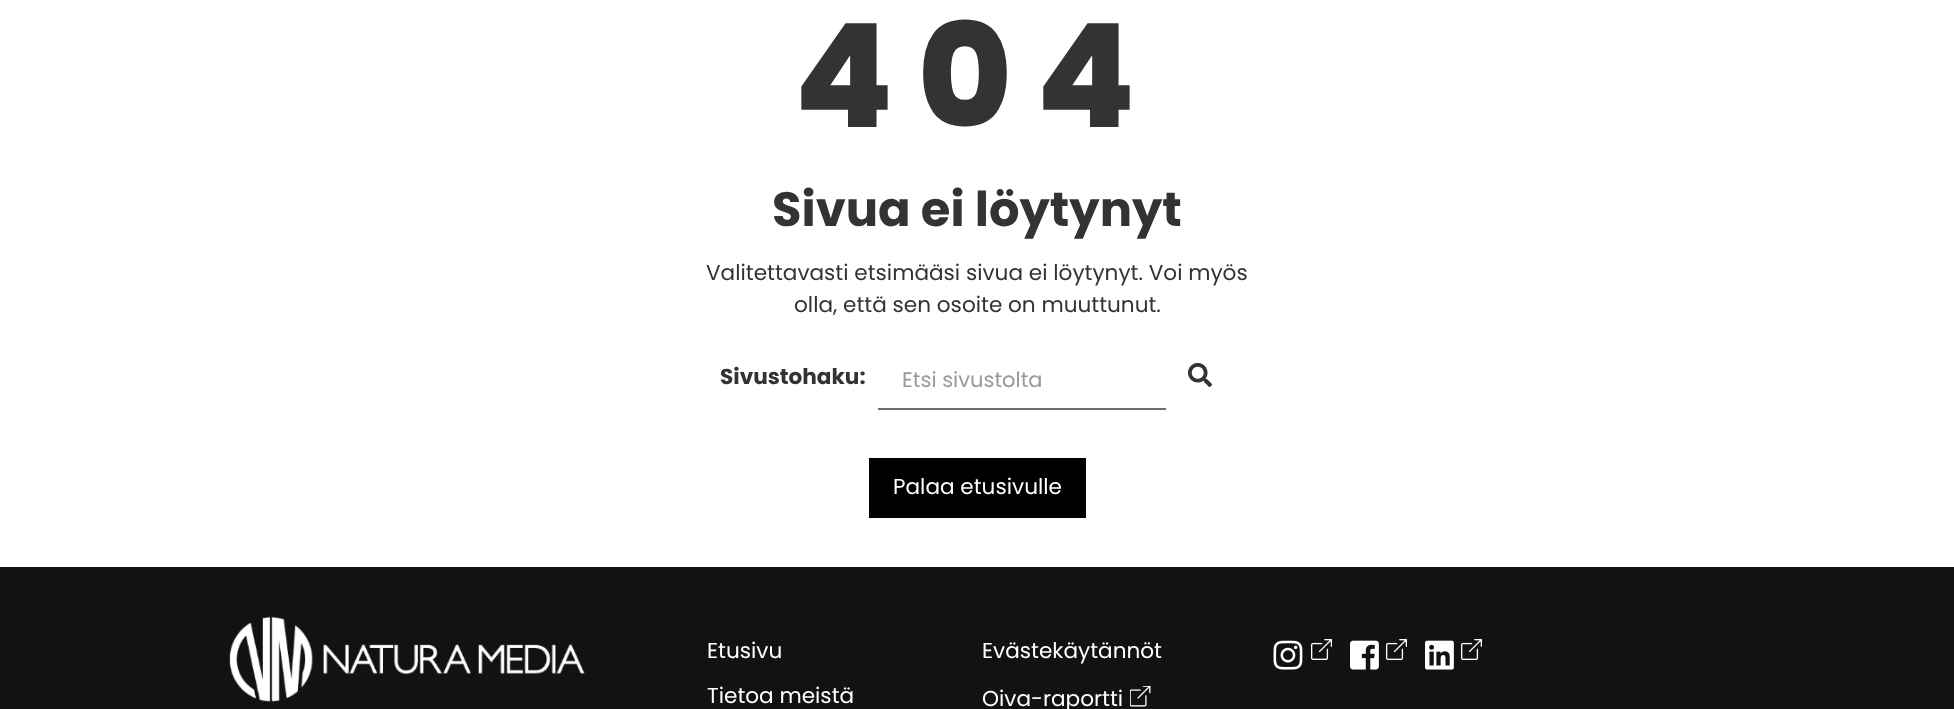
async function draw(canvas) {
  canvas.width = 1954;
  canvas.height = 709;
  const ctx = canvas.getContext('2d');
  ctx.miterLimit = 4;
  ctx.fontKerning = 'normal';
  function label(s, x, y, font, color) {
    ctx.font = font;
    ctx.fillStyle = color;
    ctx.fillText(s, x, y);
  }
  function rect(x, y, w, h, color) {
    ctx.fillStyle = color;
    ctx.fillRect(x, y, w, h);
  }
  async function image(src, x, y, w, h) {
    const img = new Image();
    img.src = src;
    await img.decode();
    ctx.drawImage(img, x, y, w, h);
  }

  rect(0, 0, 1954, 709, '#fff');
  ctx.letterSpacing = '24px';
  label('404', 794, 127, '800 144px Poppins', '#333');
  ctx.letterSpacing = '0px';
  label('Sivua ei löytynyt', 772, 226, 'bold 48px Poppins', '#333');
  label('Valitettavasti etsimääsi sivua ei löytynyt. Voi myös', 706, 280, '21.6px Poppins', '#333');
  label('olla, että sen osoite on muuttunut.', 794, 312, '21.6px Poppins', '#333');
  label('Sivustohaku:', 720, 384, 'bold 21.6px Poppins', '#333');
  rect(878, 408, 288, 2, '#6e6e6e');
  label('Etsi sivustolta', 902, 387, '21px Poppins', '#999');
  await image('assets/img1.png', 1188, 363, 24, 24);
  rect(869, 458, 217, 60, '#000');
  label('Palaa etusivulle', 893, 494, '21.6px Poppins', '#fff');
  rect(0, 567, 1954, 142, '#121212');
  await image('assets/img2.png', 229, 616, 356, 86);
  label('Etusivu', 707, 658, '21.6px Poppins', '#fff');
  label('Tietoa meistä', 707, 703, '21.6px Poppins', '#fff');
  label('Evästekäytännöt', 982, 658, '21.6px Poppins', '#fff');
  label('Oiva-raportti', 982, 706, '21.6px Poppins', '#fff');
  await image('assets/img3.png', 1130, 686, 21, 21);
  await image('assets/img4.png', 1273, 640, 30, 30);
  await image('assets/img5.png', 1311, 639, 21, 21);
  await image('assets/img6.png', 1350, 640, 29, 30);
  await image('assets/img5.png', 1386, 639, 21, 21);
  await image('assets/img7.png', 1425, 640, 29, 30);
  await image('assets/img5.png', 1461, 639, 21, 21);
}

draw(document.querySelector('canvas'));
